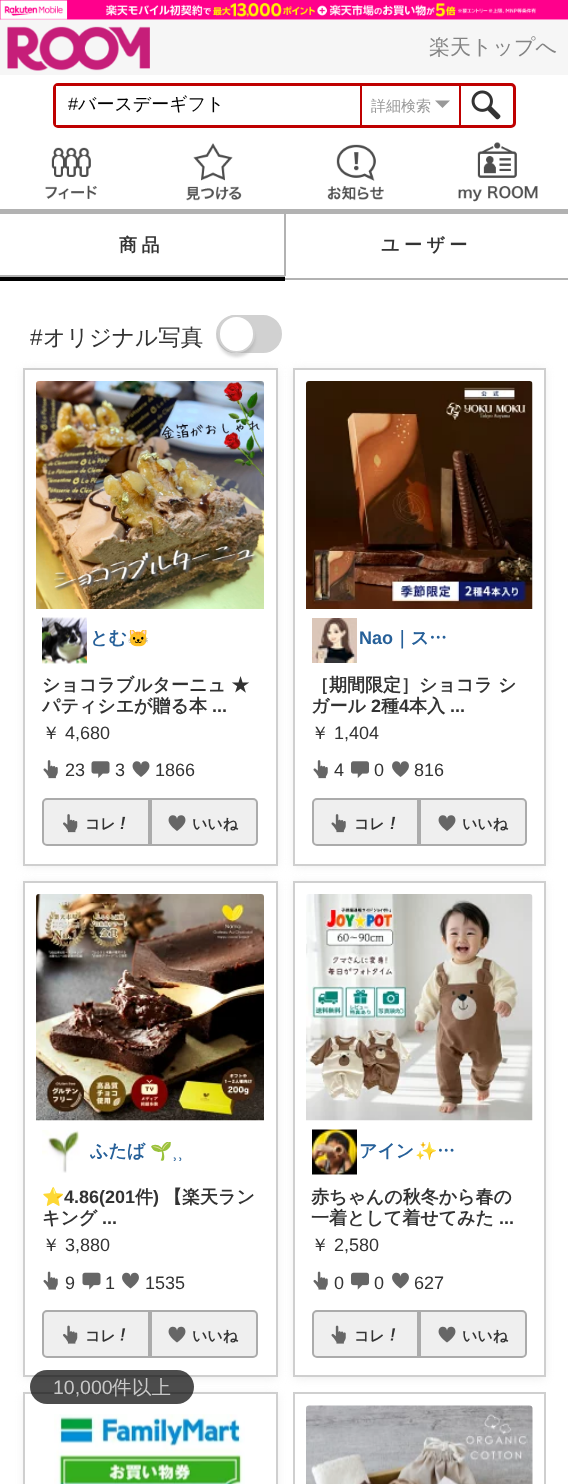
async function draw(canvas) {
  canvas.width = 568;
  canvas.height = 1484;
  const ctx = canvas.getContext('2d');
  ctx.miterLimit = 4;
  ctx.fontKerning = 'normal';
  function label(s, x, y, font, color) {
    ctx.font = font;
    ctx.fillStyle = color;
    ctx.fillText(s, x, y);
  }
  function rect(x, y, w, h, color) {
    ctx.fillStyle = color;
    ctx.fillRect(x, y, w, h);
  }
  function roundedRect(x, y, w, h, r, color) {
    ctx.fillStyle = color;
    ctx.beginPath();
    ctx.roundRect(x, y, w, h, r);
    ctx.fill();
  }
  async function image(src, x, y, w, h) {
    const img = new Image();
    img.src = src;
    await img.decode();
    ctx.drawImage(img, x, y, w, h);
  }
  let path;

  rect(0, 0, 568, 1484, '#fff');
  await image('assets/img1.png', 0, 0, 568, 20);
  rect(0, 20, 568, 55, '#f6f6f6');
  await image('assets/img2.png', 7, 26, 143, 45);
  label('楽天トップへ', 429, 54, '500 21px WenQuanYi Zen Hei', '#848484');
  ctx.beginPath();
  ctx.roundRect(54.5, 84.5, 460, 42, 3.5);
  ctx.strokeStyle = '#bf0000';
  ctx.lineWidth = 3;
  ctx.stroke();
  rect(56, 86, 2, 39, '#fff');
  label('#', 68, 110, '18px Liberation Sans', '#000');
  label('バースデーギフト', 78, 110, '500 18px WenQuanYi Zen Hei', '#000');
  rect(360, 86, 2, 39, '#bf0000');
  label('詳細検索', 371, 111, '500 15px WenQuanYi Zen Hei', '#999');
  path = new Path2D('M435 100.5H450L442.5 108Z');
  ctx.fill(path);
  rect(459, 86, 2, 39, '#bf0000');
  await image('assets/img3.png', 471, 90, 30, 30);
  await image('assets/img4.png', 186, 143, 56, 58);
  rect(284, 213, 2, 63, '#b2b2b2');
  rect(285, 209, 283, 5, '#b2b2b2');
  await image('assets/img5.png', 458, 142, 80, 60);
  rect(0, 209, 285, 5, '#b2b2b2');
  await image('assets/img6.png', 45, 147, 52, 53);
  await image('assets/img7.png', 327, 144, 57, 57);
  rect(0, 277, 285, 4, '#000');
  rect(0, 275, 285, 2, '#b2b2b2');
  ctx.letterSpacing = '4.5px';
  label('商品', 119, 251, 'bold 18px WenQuanYi Zen Hei', '#333');
  rect(285, 278, 283, 2, '#b2b2b2');
  label('ユーザー', 381, 251, 'bold 18px WenQuanYi Zen Hei', '#333');
  ctx.letterSpacing = '0px';
  label('#', 30, 345, '22.5px Liberation Sans', '#333');
  label('オリジナル写真', 43, 345, '500 22.5px WenQuanYi Zen Hei', '#333');
  ctx.fillStyle = '#d1d1d1';
  ctx.beginPath();
  ctx.roundRect(217, 316, 64, 36, 18);
  ctx.fill();
  ctx.strokeStyle = '#d1d1d1';
  ctx.lineWidth = 2;
  ctx.stroke();
  ctx.fillStyle = '#99999966';
  ctx.filter = 'blur(1.5px)';
  ctx.beginPath();
  ctx.roundRect(218, 320, 37, 37, 18.5);
  ctx.fill();
  ctx.filter = 'none';
  ctx.fillStyle = '#fff';
  ctx.beginPath();
  ctx.roundRect(219, 316, 35, 36, 17.5);
  ctx.fill();
  ctx.stroke();
  ctx.fillStyle = '#efefef';
  ctx.filter = 'blur(4.5px)';
  ctx.beginPath();
  ctx.roundRect(23, 369, 255, 498, 5);
  ctx.fill();
  ctx.filter = 'none';
  ctx.fillStyle = '#fff';
  ctx.beginPath();
  ctx.rect(24, 369, 253, 496);
  ctx.fill();
  ctx.strokeStyle = '#cfcfcf';
  ctx.stroke();
  await image('assets/img8.png', 36, 381, 228, 228);
  await image('assets/img9.png', 42, 617, 45, 47);
  label('とむ', 90, 644, 'bold 18px WenQuanYi Zen Hei', '#266099');
  ctx.save();
  ctx.beginPath();
  ctx.rect(90, 630, 98, 20);
  ctx.clip();
  label('🐱', 127, 644, 'bold 18px Noto Color Emoji', '#266099');
  ctx.restore();
  label('ショコラブルターニュ ★', 42, 691, 'bold 18px WenQuanYi Zen Hei', '#333');
  label('パティシエが贈る本', 42, 712, 'bold 18px WenQuanYi Zen Hei', '#333');
  label('...', 212, 712, 'bold 18px Liberation Sans', '#333');
  label('￥', 42, 739, '500 18px WenQuanYi Zen Hei', '#333');
  label('4,680', 65, 739, '18px Liberation Sans', '#333');
  await image('assets/img10.png', 43, 760, 15, 19);
  label('23', 65, 776, '18px Liberation Sans', '#333');
  await image('assets/img11.png', 91, 761, 19, 17);
  label('3', 115, 776, '18px Liberation Sans', '#333');
  await image('assets/img12.png', 132, 761, 18, 16);
  label('1866', 155, 776, '18px Liberation Sans', '#333');
  ctx.fillStyle = '#efefef';
  ctx.beginPath();
  ctx.roundRect(43, 799, 106, 46, [4, 0, 0, 4]);
  ctx.fill();
  ctx.strokeStyle = '#ababab';
  ctx.stroke();
  await image('assets/img13.png', 63, 814, 15, 19);
  label('コレ', 85, 829, 'bold 15px WenQuanYi Zen Hei', '#333');
  await image('assets/img14.png', 120, 816, 6, 13);
  ctx.fillStyle = '#efefef';
  ctx.beginPath();
  ctx.roundRect(151, 799, 106, 46, [0, 4, 4, 0]);
  ctx.fill();
  ctx.stroke();
  await image('assets/img15.png', 168, 815, 18, 16);
  label('いいね', 192, 829, 'bold 15px WenQuanYi Zen Hei', '#333');
  ctx.fillStyle = '#efefef';
  ctx.filter = 'blur(4.5px)';
  ctx.beginPath();
  ctx.roundRect(23, 882, 255, 497, 5);
  ctx.fill();
  ctx.filter = 'none';
  ctx.fillStyle = '#fff';
  ctx.beginPath();
  ctx.rect(24, 882, 253, 494);
  ctx.fill();
  ctx.strokeStyle = '#cfcfcf';
  ctx.stroke();
  await image('assets/img16.png', 36, 894, 228, 227);
  await image('assets/img17.png', 42, 1130, 38, 43);
  label('ふたば', 90, 1157, 'bold 18px WenQuanYi Zen Hei', '#266099');
  ctx.save();
  ctx.beginPath();
  ctx.rect(90, 1142, 98, 19);
  ctx.clip();
  label('🌱', 150, 1157, 'bold 18px Noto Color Emoji', '#266099');
  ctx.restore();
  label('⸒⸒', 172, 1157, 'bold 18px Noto Sans', '#266099');
  label('⭐️', 42, 1203, 'bold 18px Noto Color Emoji', '#333');
  label('4.86(201', 64, 1203, 'bold 18px Liberation Sans', '#333');
  label('件', 135, 1203, 'bold 18px WenQuanYi Zen Hei', '#333');
  label(')', 153, 1203, 'bold 18px Liberation Sans', '#333');
  label('【楽天ラン', 164, 1203, 'bold 18px WenQuanYi Zen Hei', '#333');
  label('キング', 42, 1224, 'bold 18px WenQuanYi Zen Hei', '#333');
  label('...', 102, 1224, 'bold 18px Liberation Sans', '#333');
  label('￥', 42, 1251, '500 18px WenQuanYi Zen Hei', '#333');
  label('3,880', 65, 1251, '18px Liberation Sans', '#333');
  await image('assets/img18.png', 43, 1271, 15, 19);
  label('9', 65, 1289, '18px Liberation Sans', '#333');
  await image('assets/img19.png', 82, 1272, 19, 18);
  label('1', 105, 1289, '18px Liberation Sans', '#333');
  await image('assets/img20.png', 122, 1272, 17, 17);
  label('1535', 145, 1289, '18px Liberation Sans', '#333');
  ctx.fillStyle = '#efefef';
  ctx.beginPath();
  ctx.roundRect(43, 1311, 106, 46, [4, 0, 0, 4]);
  ctx.fill();
  ctx.strokeStyle = '#ababab';
  ctx.stroke();
  await image('assets/img21.png', 63, 1325, 15, 19);
  label('コレ', 85, 1341, 'bold 15px WenQuanYi Zen Hei', '#333');
  await image('assets/img22.png', 120, 1328, 6, 13);
  ctx.fillStyle = '#efefef';
  ctx.beginPath();
  ctx.roundRect(151, 1311, 106, 46, [0, 4, 4, 0]);
  ctx.fill();
  ctx.stroke();
  await image('assets/img23.png', 168, 1326, 18, 17);
  label('いいね', 192, 1341, 'bold 15px WenQuanYi Zen Hei', '#333');
  ctx.fillStyle = '#efefef';
  ctx.filter = 'blur(4.5px)';
  ctx.beginPath();
  ctx.roundRect(23, 1394, 255, 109, 5);
  ctx.fill();
  ctx.filter = 'none';
  ctx.fillStyle = '#fff';
  ctx.beginPath();
  ctx.rect(24, 1393, 253, 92);
  ctx.fill();
  ctx.strokeStyle = '#cfcfcf';
  ctx.stroke();
  await image('assets/img24.png', 54, 1414, 191, 70);
  ctx.fillStyle = '#efefef';
  ctx.filter = 'blur(4.5px)';
  ctx.beginPath();
  ctx.roundRect(293, 369, 253, 498, 5);
  ctx.fill();
  ctx.filter = 'none';
  ctx.fillStyle = '#fff';
  ctx.beginPath();
  ctx.rect(294, 369, 251, 496);
  ctx.fill();
  ctx.stroke();
  await image('assets/img25.png', 306, 381, 227, 228);
  await image('assets/img26.png', 312, 618, 45, 45);
  label('Nao', 359, 644, 'bold 18px Liberation Sans', '#266099');
  label('｜ス…', 393, 644, 'bold 18px WenQuanYi Zen Hei', '#266099');
  label('［期間限定］ショコラ シ', 311, 691, 'bold 18px WenQuanYi Zen Hei', '#333');
  label('ガール', 311, 712, 'bold 18px WenQuanYi Zen Hei', '#333');
  label('2', 371, 712, 'bold 18px Liberation Sans', '#333');
  label('種', 381, 712, 'bold 18px WenQuanYi Zen Hei', '#333');
  label('4', 399, 712, 'bold 18px Liberation Sans', '#333');
  label('本入', 409, 712, 'bold 18px WenQuanYi Zen Hei', '#333');
  label('...', 450, 712, 'bold 18px Liberation Sans', '#333');
  label('￥', 311, 739, '500 18px WenQuanYi Zen Hei', '#333');
  label('1,404', 334, 739, '18px Liberation Sans', '#333');
  await image('assets/img10.png', 313, 760, 15, 19);
  label('4', 334, 776, '18px Liberation Sans', '#333');
  await image('assets/img27.png', 351, 761, 18, 17);
  label('0', 374, 776, '18px Liberation Sans', '#333');
  await image('assets/img28.png', 392, 761, 17, 16);
  label('816', 414, 776, '18px Liberation Sans', '#333');
  ctx.fillStyle = '#efefef';
  ctx.beginPath();
  ctx.roundRect(313, 799, 105, 46, [4, 0, 0, 4]);
  ctx.fill();
  ctx.strokeStyle = '#ababab';
  ctx.stroke();
  await image('assets/img29.png', 331, 814, 15, 19);
  label('コレ', 354, 829, 'bold 15px WenQuanYi Zen Hei', '#333');
  await image('assets/img14.png', 390, 816, 6, 13);
  ctx.fillStyle = '#efefef';
  ctx.beginPath();
  ctx.roundRect(420, 799, 106, 46, [0, 4, 4, 0]);
  ctx.fill();
  ctx.stroke();
  await image('assets/img15.png', 438, 815, 18, 16);
  label('いいね', 462, 829, 'bold 15px WenQuanYi Zen Hei', '#333');
  ctx.save();
  path = new Path2D('M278 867H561V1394H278ZM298 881H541C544 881 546 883 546 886V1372C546 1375 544 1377 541 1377H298C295 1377 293 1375 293 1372V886C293 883 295 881 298 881Z');
  ctx.clip(path, 'evenodd');
  ctx.fillStyle = '#efefef';
  ctx.filter = 'blur(4.5px)';
  ctx.beginPath();
  ctx.roundRect(293, 882, 253, 497, 5);
  ctx.fill();
  ctx.filter = 'none';
  ctx.restore();
  ctx.strokeStyle = '#cfcfcf';
  ctx.strokeRect(294, 882, 251, 494);
  await image('assets/img30.png', 306, 894, 227, 227);
  await image('assets/img31.png', 312, 1129, 45, 46);
  label('アイン', 359, 1157, 'bold 18px WenQuanYi Zen Hei', '#266099');
  ctx.save();
  ctx.beginPath();
  ctx.rect(360, 1142, 98, 19);
  ctx.clip();
  label('✨', 415, 1157, 'bold 18px Noto Color Emoji', '#266099');
  ctx.restore();
  label('…', 437, 1157, 'bold 18px WenQuanYi Zen Hei', '#266099');
  label('赤ちゃんの秋冬から春の', 311, 1203, 'bold 18px WenQuanYi Zen Hei', '#333');
  label('一着として着せてみた', 311, 1224, 'bold 18px WenQuanYi Zen Hei', '#333');
  label('...', 499, 1224, 'bold 18px Liberation Sans', '#333');
  label('￥', 311, 1251, '500 18px WenQuanYi Zen Hei', '#333');
  label('2,580', 334, 1251, '18px Liberation Sans', '#333');
  await image('assets/img18.png', 313, 1271, 15, 19);
  label('0', 334, 1289, '18px Liberation Sans', '#333');
  await image('assets/img32.png', 351, 1272, 18, 18);
  label('0', 374, 1289, '18px Liberation Sans', '#333');
  await image('assets/img20.png', 392, 1272, 17, 17);
  label('627', 414, 1289, '18px Liberation Sans', '#333');
  ctx.fillStyle = '#efefef';
  ctx.beginPath();
  ctx.roundRect(313, 1311, 105, 46, [4, 0, 0, 4]);
  ctx.fill();
  ctx.strokeStyle = '#ababab';
  ctx.stroke();
  await image('assets/img33.png', 331, 1325, 15, 19);
  label('コレ', 354, 1341, 'bold 15px WenQuanYi Zen Hei', '#333');
  await image('assets/img22.png', 390, 1328, 6, 13);
  ctx.fillStyle = '#efefef';
  ctx.beginPath();
  ctx.roundRect(420, 1311, 106, 46, [0, 4, 4, 0]);
  ctx.fill();
  ctx.stroke();
  await image('assets/img23.png', 438, 1326, 18, 17);
  label('いいね', 462, 1341, 'bold 15px WenQuanYi Zen Hei', '#333');
  ctx.strokeStyle = '#cfcfcf';
  ctx.strokeRect(294, 1393, 251, 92);
  await image('assets/img34.png', 306, 1405, 227, 79);
  roundedRect(30, 1370, 164, 34, 17, '#000000b3');
  label('10,000', 53, 1394, '19.5px Liberation Sans', '#c8c8c8');
  label('件', 112, 1394, '500 19.5px WenQuanYi Zen Hei', '#c8c8c8');
  label('以上', 132, 1394, '500 19.5px WenQuanYi Zen Hei', '#c8c8c8');
}

draw(document.querySelector('canvas'));
